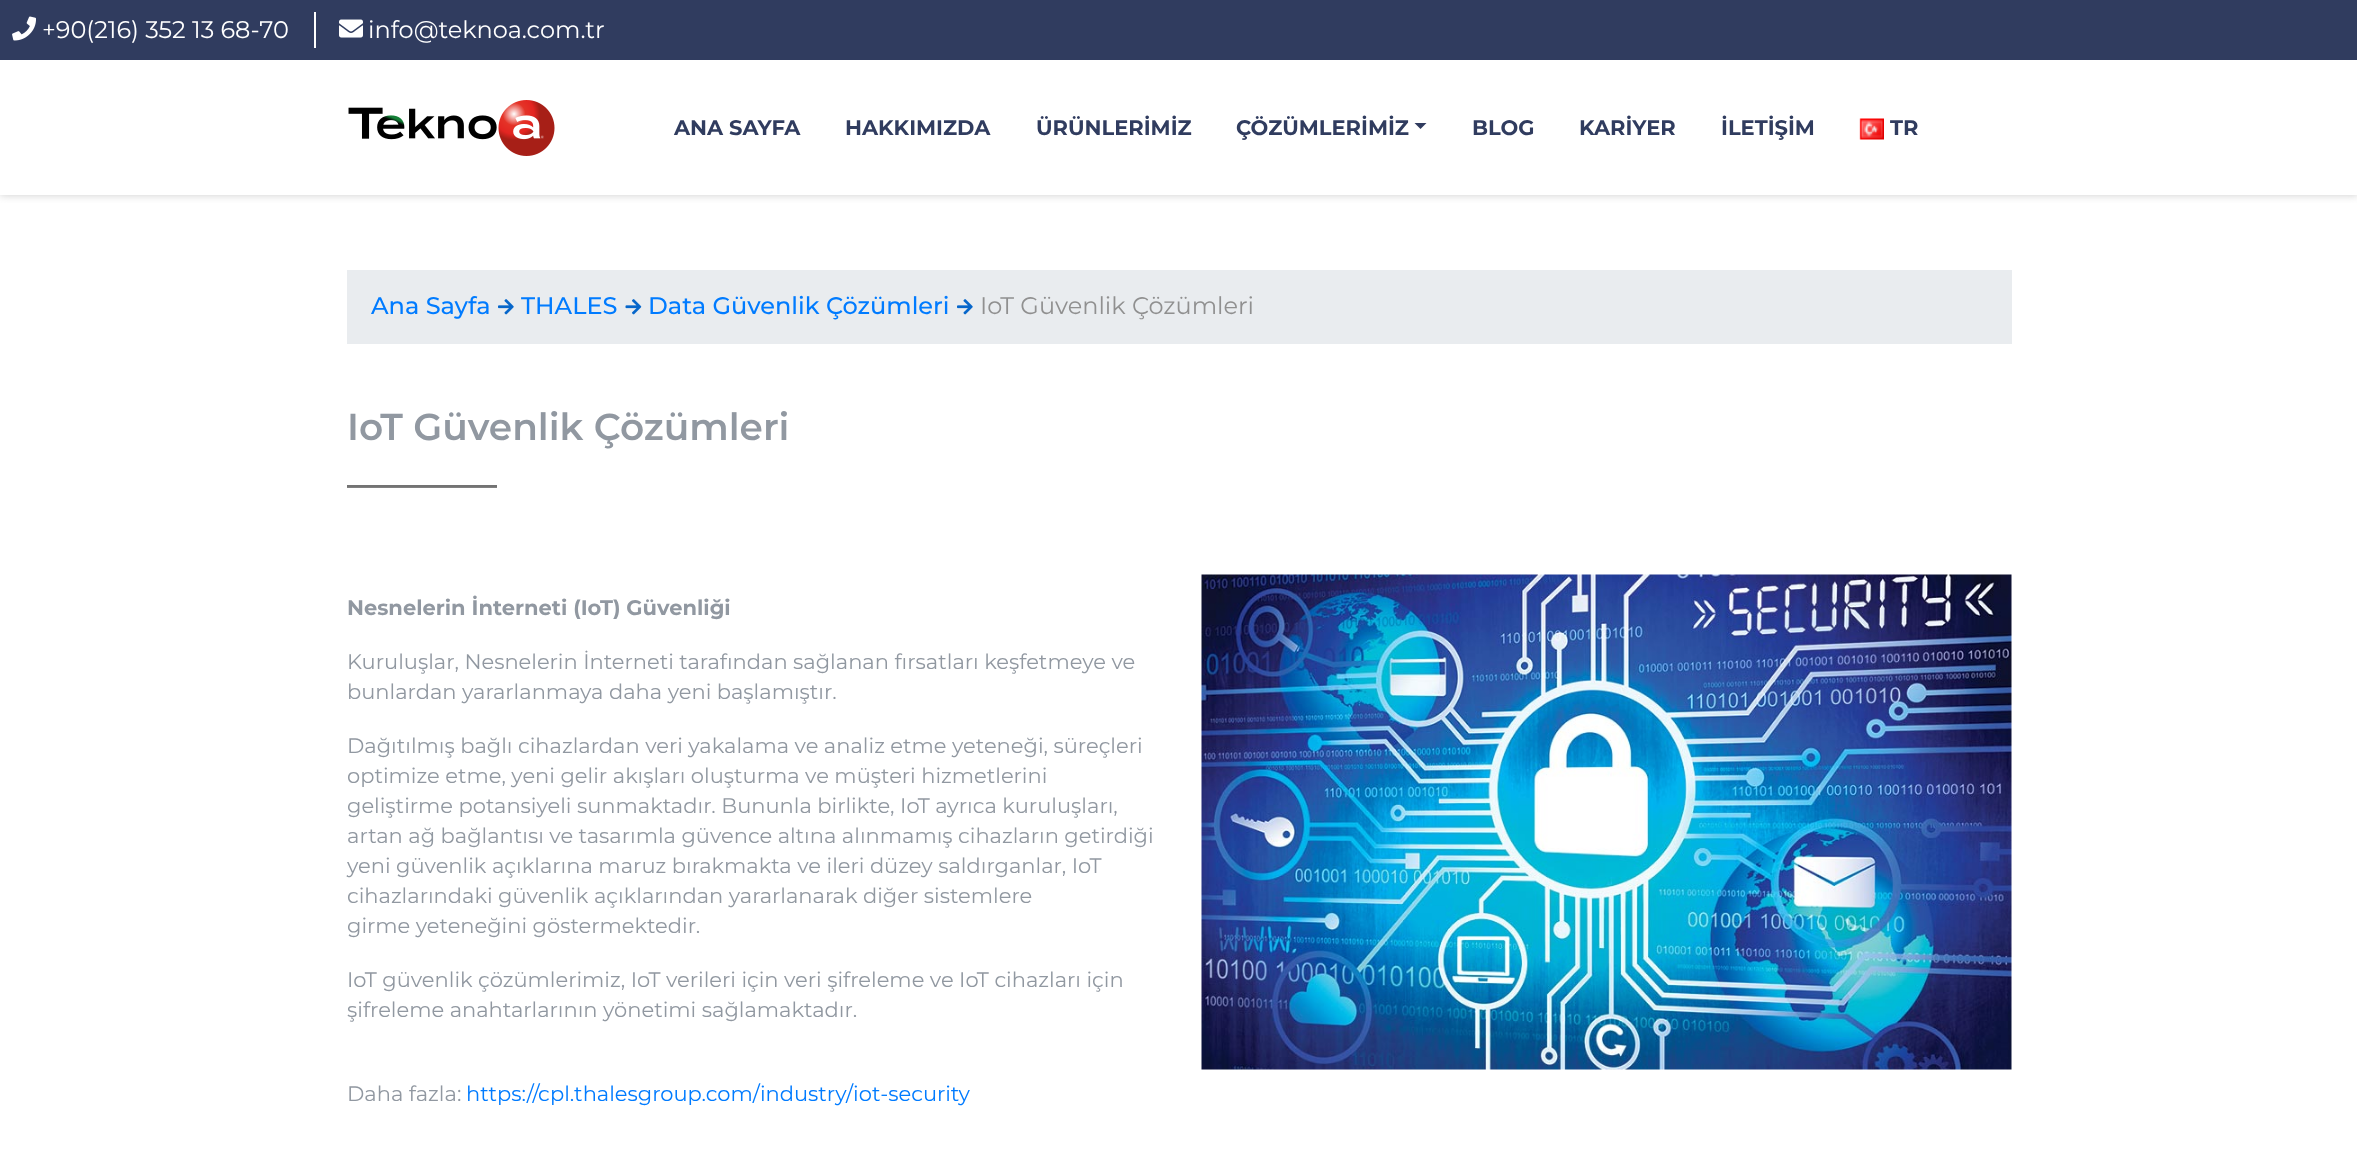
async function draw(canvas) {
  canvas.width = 2357;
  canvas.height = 1162;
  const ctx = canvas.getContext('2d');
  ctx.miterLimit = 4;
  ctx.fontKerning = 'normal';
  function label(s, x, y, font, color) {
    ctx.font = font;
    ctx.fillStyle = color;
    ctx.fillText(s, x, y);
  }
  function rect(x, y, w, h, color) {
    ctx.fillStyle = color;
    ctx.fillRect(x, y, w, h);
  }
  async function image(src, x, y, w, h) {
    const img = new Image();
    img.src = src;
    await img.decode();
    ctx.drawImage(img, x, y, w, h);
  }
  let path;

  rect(0, 0, 2357, 1162, '#fff');
  ctx.save();
  ctx.beginPath();
  ctx.rect(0, 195, 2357, 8);
  ctx.clip();
  ctx.fillStyle = '#ccc';
  ctx.filter = 'blur(4px)';
  ctx.beginPath();
  ctx.rect(0, 0, 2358, 195);
  ctx.fill();
  ctx.filter = 'none';
  ctx.restore();
  rect(0, 0, 2357, 60, '#303c5f');
  rect(314, 12, 2, 36, '#fff');
  await image('assets/img1.png', 12, 16, 24, 25);
  label('+90(216) 352 13 68-70', 42, 38, '24px Montserrat', '#fff');
  await image('assets/img2.png', 339, 19, 24, 19);
  label('info@teknoa.com.tr', 368, 38, '24px Montserrat', '#fff');
  await image('assets/img3.png', 348, 100, 207, 56);
  label('ANA SAYFA', 674, 135, 'bold 21px Montserrat', '#303c5f');
  label('HAKKIMIZDA', 845, 135, 'bold 21px Montserrat', '#303c5f');
  label('ÜRÜNLERİMİZ', 1036, 135, 'bold 21px Montserrat', '#303c5f');
  label('ÇÖZÜMLERİMİZ', 1236, 135, 'bold 21px Montserrat', '#303c5f');
  path = new Path2D('M1414.5 123H1426.5L1420.5 129Z');
  ctx.fill(path);
  label('BLOG', 1472, 135, 'bold 21px Montserrat', '#303c5f');
  label('KARİYER', 1579, 135, 'bold 21px Montserrat', '#303c5f');
  label('İLETİŞİM', 1721, 135, 'bold 21px Montserrat', '#303c5f');
  await image('assets/img4.png', 1859, 118, 25, 22);
  label('TR', 1890, 135, 'bold 21px Montserrat', '#303c5f');
  rect(347, 270, 1665, 74, '#e9ecef');
  label('Ana Sayfa', 371, 314, '500 24px Montserrat', '#007bff');
  await image('assets/img5.png', 498, 299, 16, 16);
  label('THALES', 521, 314, '500 24px Montserrat', '#007bff');
  await image('assets/img6.png', 625, 299, 17, 16);
  label('Data Güvenlik Çözümleri', 648, 314, '500 24px Montserrat', '#007bff');
  await image('assets/img5.png', 957, 299, 16, 16);
  label('IoT Güvenlik Çözümleri', 980, 314, '24px Montserrat', '#909090');
  label('IoT Güvenlik Çözümleri', 347, 440, '600 37.5px Montserrat', '#9198a1');
  rect(347, 487, 150, 1, '#808080');
  rect(347, 485, 150, 2, '#737373');
  label('Nesnelerin İnterneti (IoT) Güvenliği', 347, 615, 'bold 21px Montserrat', '#9198a1');
  label('Kuruluşlar, Nesnelerin İnterneti tarafından sağlanan fırsatları keşfetmeye ve', 347, 669, '21px Montserrat', '#9198a1');
  label('bunlardan yararlanmaya daha yeni başlamıştır.', 347, 699, '21px Montserrat', '#9198a1');
  label('Dağıtılmış bağlı cihazlardan veri yakalama ve analiz etme yeteneği, süreçleri', 347, 753, '21px Montserrat', '#9198a1');
  label('optimize etme, yeni gelir akışları oluşturma ve müşteri hizmetlerini', 347, 783, '21px Montserrat', '#9198a1');
  label('geliştirme potansiyeli sunmaktadır. Bununla birlikte, IoT ayrıca kuruluşları,', 347, 813, '21px Montserrat', '#9198a1');
  label('artan ağ bağlantısı ve tasarımla güvence altına alınmamış cihazların getirdiği', 347, 843, '21px Montserrat', '#9198a1');
  label('yeni güvenlik açıklarına maruz bırakmakta ve ileri düzey saldırganlar, IoT', 347, 873, '21px Montserrat', '#9198a1');
  label('cihazlarındaki güvenlik açıklarından yararlanarak diğer sistemlere', 347, 903, '21px Montserrat', '#9198a1');
  label('girme yeteneğini göstermektedir.', 347, 933, '21px Montserrat', '#9198a1');
  label('IoT güvenlik çözümlerimiz, IoT verileri için veri şifreleme ve IoT cihazları için', 347, 987, '21px Montserrat', '#9198a1');
  label('şifreleme anahtarlarının yönetimi sağlamaktadır.', 347, 1017, '21px Montserrat', '#9198a1');
  label('Daha fazla:', 347, 1101, '21px Montserrat', '#9198a1');
  label('https://cpl.thalesgroup.com/industry/iot-security', 466, 1101, '21px Montserrat', '#007bff');
  await image('assets/img7.png', 1201, 574, 811, 496);
}

draw(document.querySelector('canvas'));
